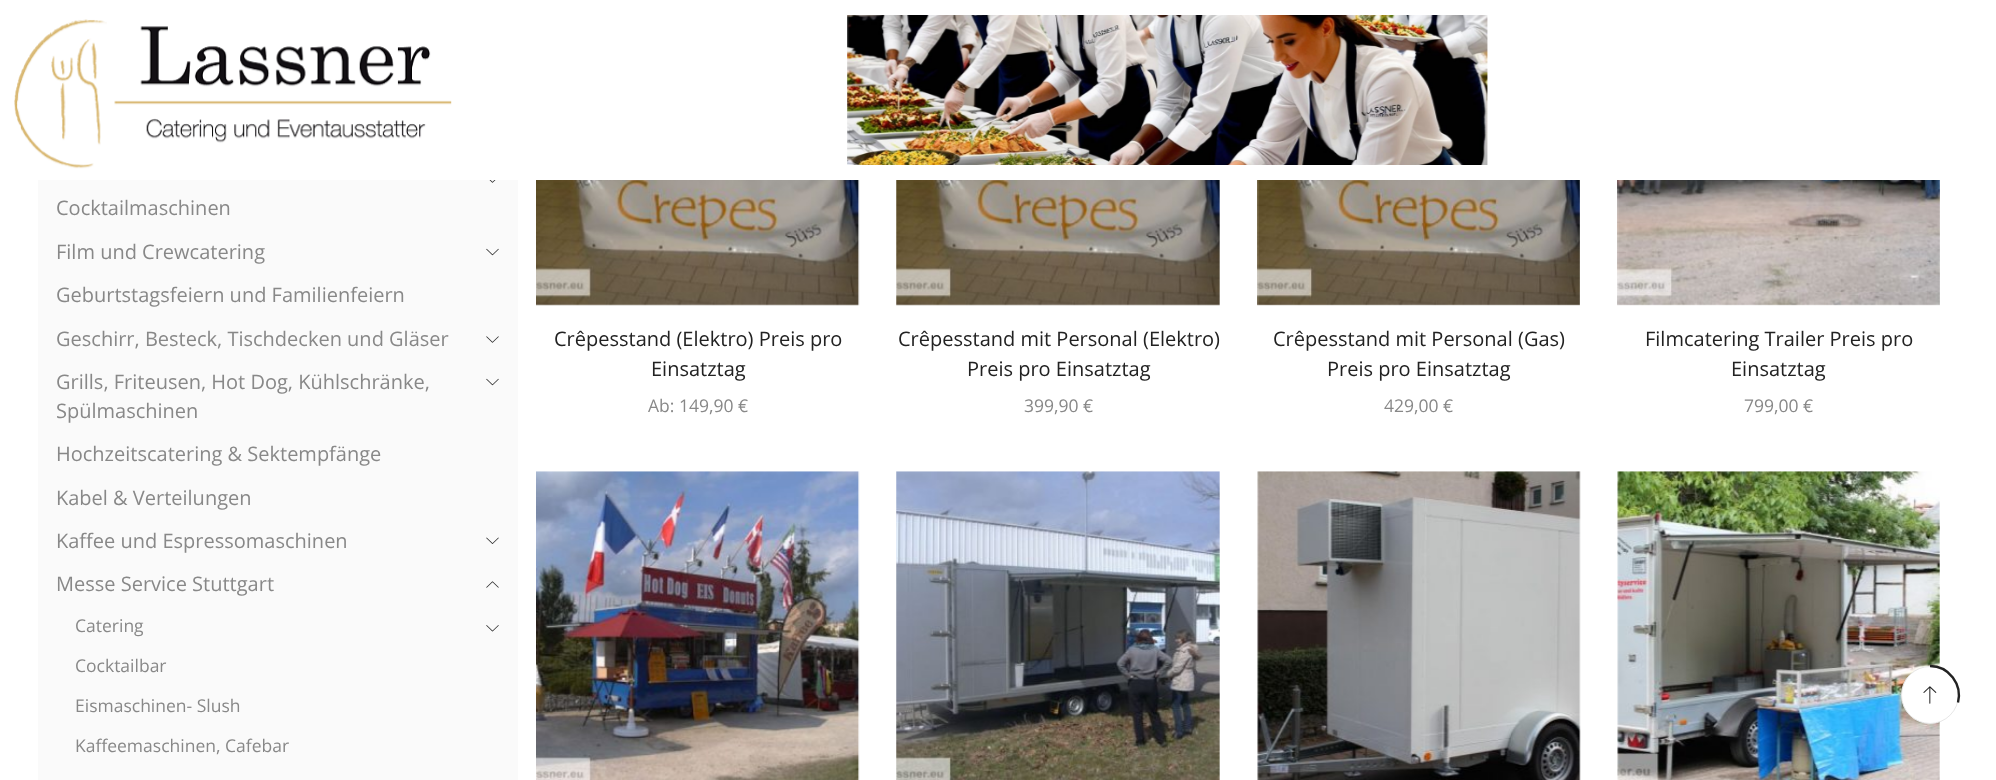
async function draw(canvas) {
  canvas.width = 1996;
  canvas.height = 780;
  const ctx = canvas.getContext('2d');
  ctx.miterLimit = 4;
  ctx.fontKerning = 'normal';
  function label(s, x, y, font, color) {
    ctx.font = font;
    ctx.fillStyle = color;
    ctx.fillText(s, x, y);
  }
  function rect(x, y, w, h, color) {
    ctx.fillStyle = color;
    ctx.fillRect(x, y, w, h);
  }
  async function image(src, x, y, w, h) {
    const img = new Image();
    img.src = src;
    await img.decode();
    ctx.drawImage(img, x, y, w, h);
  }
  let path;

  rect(0, 0, 1996, 780, '#fff');
  await image('assets/img1.png', 14, 19, 438, 150);
  await image('assets/img2.png', 847, 15, 641, 150);
  rect(38, 180, 480, 600, '#fafafa');
  await image('assets/img3.png', 489, 180, 7, 3);
  label('Cocktailmaschinen', 56, 215, '20px Open Sans', '#888');
  label('Film und Crewcatering', 56, 259, '20px Open Sans', '#888');
  await image('assets/img4.png', 486, 248, 13, 8);
  label('Geburtstagsfeiern und Familienfeiern', 56, 302, '20px Open Sans', '#888');
  label('Geschirr, Besteck, Tischdecken und Gläser', 56, 346, '20px Open Sans', '#888');
  await image('assets/img5.png', 486, 336, 13, 7);
  label('Grills, Friteusen, Hot Dog, Kühlschränke,', 56, 389, '20px Open Sans', '#888');
  label('Spülmaschinen', 56, 418, '20px Open Sans', '#888');
  await image('assets/img4.png', 486, 378, 13, 8);
  label('Hochzeitscatering & Sektempfänge', 56, 461, '20px Open Sans', '#888');
  label('Kabel & Verteilungen', 56, 505, '20px Open Sans', '#888');
  label('Kaffee und Espressomaschinen', 56, 548, '20px Open Sans', '#888');
  await image('assets/img6.png', 486, 537, 13, 7);
  label('Messe Service Stuttgart', 56, 591, '20px Open Sans', '#888');
  await image('assets/img7.png', 486, 581, 13, 7);
  label('Catering', 75, 632, '17.5px Open Sans', '#888');
  await image('assets/img8.png', 486, 625, 13, 7);
  label('Cocktailbar', 75, 672, '17.5px Open Sans', '#888');
  label('Eismaschinen- Slush', 75, 712, '17.5px Open Sans', '#888');
  label('Kaffeemaschinen, Cafebar', 75, 752, '17.5px Open Sans', '#888');
  await image('assets/img9.png', 536, 180, 324, 126);
  label('Crêpesstand (Elektro) Preis pro', 554, 346, '20px Open Sans', '#222');
  label('Einsatztag', 651, 376, '20px Open Sans', '#222');
  label('Ab: 149,90 €', 648, 412, '17.5px Open Sans', '#888');
  await image('assets/img10.png', 896, 180, 324, 126);
  label('Crêpesstand mit Personal (Elektro)', 898, 346, '20px Open Sans', '#222');
  label('Preis pro Einsatztag', 967, 376, '20px Open Sans', '#222');
  label('399,90 €', 1024, 412, '17.5px Open Sans', '#888');
  await image('assets/img11.png', 1257, 180, 323, 126);
  label('Crêpesstand mit Personal (Gas)', 1273, 346, '20px Open Sans', '#222');
  label('Preis pro Einsatztag', 1327, 376, '20px Open Sans', '#222');
  label('429,00 €', 1384, 412, '17.5px Open Sans', '#888');
  await image('assets/img12.png', 1617, 180, 323, 126);
  label('Filmcatering Trailer Preis pro', 1645, 346, '20px Open Sans', '#222');
  label('Einsatztag', 1731, 376, '20px Open Sans', '#222');
  label('799,00 €', 1744, 412, '17.5px Open Sans', '#888');
  await image('assets/img13.png', 536, 471, 324, 309);
  await image('assets/img14.png', 896, 471, 324, 309);
  await image('assets/img15.png', 1257, 471, 324, 309);
  await image('assets/img16.png', 1617, 471, 323, 309);
  ctx.fillStyle = '#fff';
  ctx.beginPath();
  ctx.arc(1930, 695, 28.5, 0, 2 * Math.PI);
  ctx.fill();
  ctx.strokeStyle = '#e7e7e7';
  ctx.stroke();
  path = new Path2D('M1930 666C1949 666 1962.5 684.5 1958 702.5');
  ctx.strokeStyle = '#222';
  ctx.lineWidth = 2.4;
  ctx.stroke(path);
  await image('assets/img17.png', 1923, 686, 14, 18);
}

draw(document.querySelector('canvas'));
